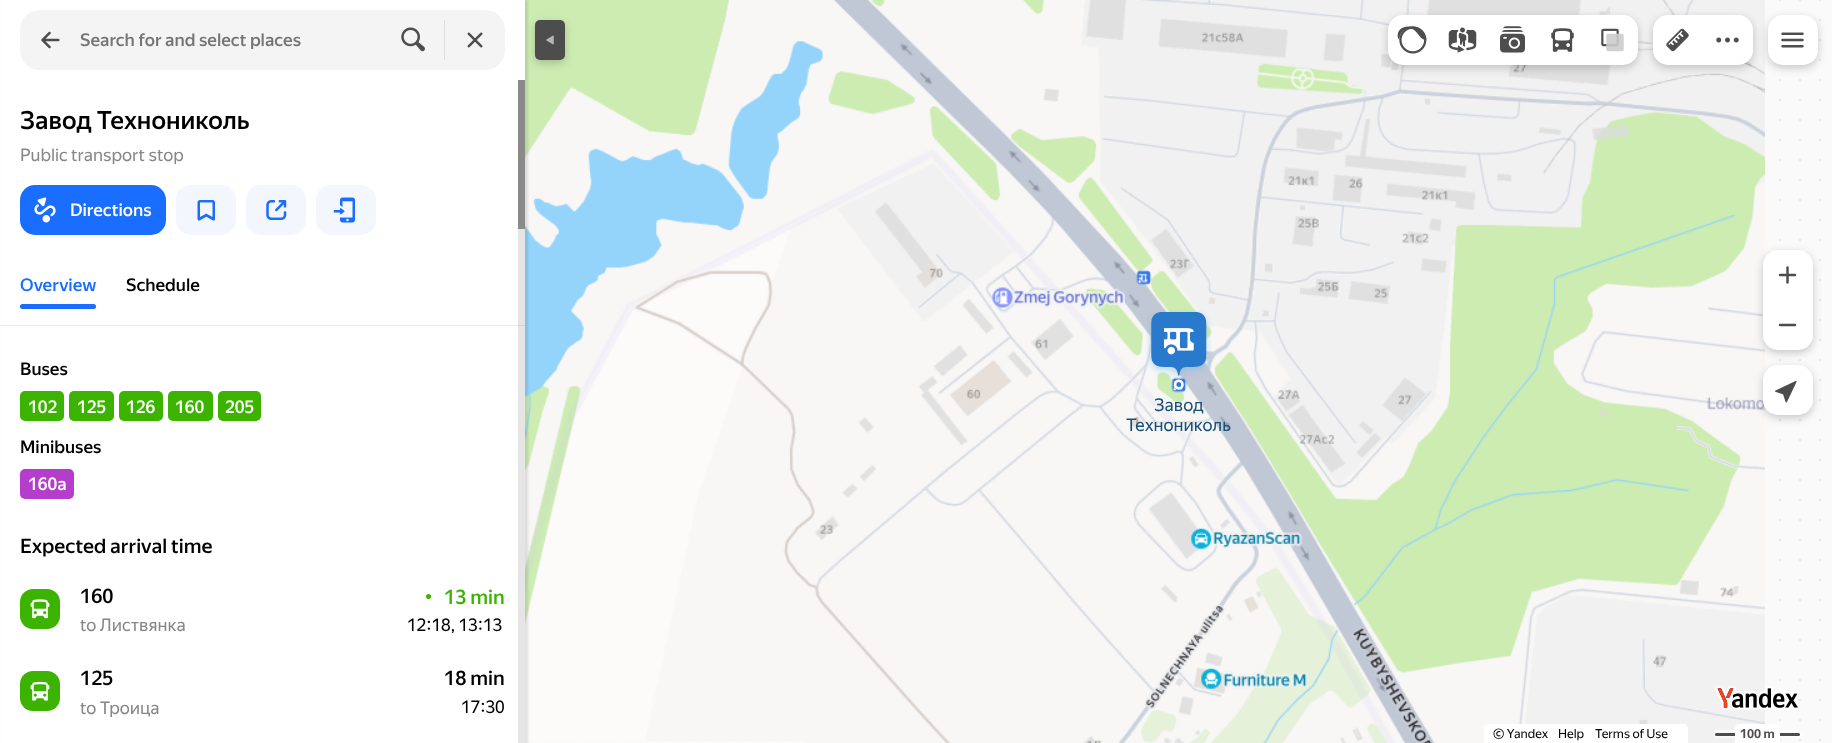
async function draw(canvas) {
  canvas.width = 1832;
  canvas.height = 743;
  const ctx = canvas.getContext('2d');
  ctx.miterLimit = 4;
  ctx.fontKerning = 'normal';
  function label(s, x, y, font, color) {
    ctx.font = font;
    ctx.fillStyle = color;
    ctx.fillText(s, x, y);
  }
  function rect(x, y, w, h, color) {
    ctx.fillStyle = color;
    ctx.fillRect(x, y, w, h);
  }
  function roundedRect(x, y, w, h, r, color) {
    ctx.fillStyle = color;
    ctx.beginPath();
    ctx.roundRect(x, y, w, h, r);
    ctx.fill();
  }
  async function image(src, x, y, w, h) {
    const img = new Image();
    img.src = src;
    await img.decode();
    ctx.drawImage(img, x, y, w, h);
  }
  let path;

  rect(0, 0, 1832, 743, '#fff');
  await image('assets/img1.png', 525, 0, 1307, 743);
  await image('assets/img24.png', 525, 0, 280, 215);
  await image('assets/img28.png', 525, 215, 280, 320);
  await image('assets/img32.png', 525, 535, 280, 206);
  ctx.fillStyle = '#0000001a';
  ctx.filter = 'blur(1px)';
  ctx.beginPath();
  ctx.rect(3, 0, 525, 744);
  ctx.fill();
  ctx.filter = 'none';
  ctx.fillStyle = '#00000033';
  ctx.filter = 'blur(4px)';
  ctx.beginPath();
  ctx.roundRect(535, 23, 30, 40, 5);
  ctx.fill();
  ctx.filter = 'none';
  rect(2, 0, 523, 743, '#fff');
  roundedRect(20, 10, 485, 60, 20, '#f4f4f4');
  await image('assets/img2.png', 41, 31, 19, 18);
  label('Search for and select places', 80, 46, '500 17.5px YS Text', '#757575');
  await image('assets/img3.png', 401, 27, 24, 25);
  rect(444, 20, 1, 40, '#e0e0e0');
  await image('assets/img4.png', 467, 32, 16, 16);
  await image('assets/img26.png', 1125, 0, 320, 215);
  await image('assets/img27.png', 1445, 0, 320, 215);
  ctx.fillStyle = '#00000033';
  ctx.filter = 'blur(4px)';
  ctx.beginPath();
  ctx.roundRect(1388, 18, 250, 50, 15);
  ctx.fill();
  ctx.filter = 'none';
  ctx.fillStyle = '#fff';
  ctx.beginPath();
  ctx.roundRect(1388, 15, 50, 50, [15, 0, 0, 15]);
  ctx.fill();
  await image('assets/img5.png', 1397, 26, 30, 28);
  rect(1438, 15, 150, 50, '#fff');
  await image('assets/img6.png', 1448, 27, 29, 26);
  ctx.beginPath();
  ctx.roundRect(1588, 15, 50, 50, [0, 15, 15, 0]);
  ctx.fill();
  await image('assets/img7.png', 1601, 28, 23, 24);
  await image('assets/img8.png', 1500, 26, 25, 27);
  await image('assets/img9.png', 1551, 28, 23, 24);
  ctx.fillStyle = '#00000033';
  ctx.filter = 'blur(4px)';
  ctx.beginPath();
  ctx.roundRect(1653, 18, 100, 50, 15);
  ctx.fill();
  ctx.filter = 'none';
  ctx.fillStyle = '#fff';
  ctx.beginPath();
  ctx.roundRect(1653, 15, 50, 50, [15, 0, 0, 15]);
  ctx.fill();
  await image('assets/img10.png', 1666, 28, 23, 24);
  ctx.beginPath();
  ctx.roundRect(1703, 15, 50, 50, [0, 15, 15, 0]);
  ctx.fill();
  await image('assets/img11.png', 1716, 37, 23, 6);
  ctx.fillStyle = '#00000033';
  ctx.filter = 'blur(4px)';
  ctx.beginPath();
  ctx.roundRect(1768, 18, 50, 50, 15);
  ctx.fill();
  ctx.filter = 'none';
  roundedRect(1768, 15, 50, 50, 15, '#fff');
  await image('assets/img12.png', 1781, 32, 23, 16);
  await image('assets/img31.png', 1445, 215, 320, 320);
  ctx.fillStyle = '#00000033';
  ctx.filter = 'blur(4px)';
  ctx.beginPath();
  ctx.roundRect(1763, 253, 50, 100, 15);
  ctx.fill();
  ctx.filter = 'none';
  ctx.fillStyle = '#fff';
  ctx.beginPath();
  ctx.roundRect(1763, 250, 50, 50, [15, 15, 0, 0]);
  ctx.fill();
  await image('assets/img13.png', 1778, 266, 19, 18);
  ctx.beginPath();
  ctx.roundRect(1763, 300, 50, 50, [0, 0, 15, 15]);
  ctx.fill();
  await image('assets/img14.png', 1778, 323, 19, 4);
  ctx.fillStyle = '#00000033';
  ctx.filter = 'blur(4px)';
  ctx.beginPath();
  ctx.roundRect(1763, 368, 50, 50, 15);
  ctx.fill();
  ctx.filter = 'none';
  roundedRect(1763, 365, 50, 50, 15, '#fff');
  await image('assets/img15.png', 1775, 381, 22, 22);
  roundedRect(535, 20, 30, 40, 5, '#4d4d4d');
  await image('assets/img16.png', 546, 35, 8, 10);
  label('Завод Технониколь', 20, 129, '500 25px YS Text', '#000');
  label('Public transport stop', 20, 161, '17.5px YS Text', '#878787');
  roundedRect(20, 185, 146, 50, 15, '#196dff');
  await image('assets/img17.png', 34, 197, 22, 26);
  label('Directions', 70, 216, '500 17.5px YS Text', '#fff');
  roundedRect(176, 185, 60, 50, 15, '#f3f6fc');
  await image('assets/img18.png', 197, 200, 18, 21);
  roundedRect(246, 185, 60, 50, 15, '#f3f6fc');
  await image('assets/img19.png', 266, 200, 21, 20);
  roundedRect(316, 185, 60, 50, 15, '#f3f6fc');
  await image('assets/img20.png', 333, 197, 22, 26);
  label('Overview', 20, 291, '500 17.5px YS Text', '#196dff');
  label('Schedule', 126, 291, '500 17.5px YS Text', '#000');
  roundedRect(20, 304, 76, 5, 2.5, '#196dff');
  rect(0, 325, 525, 1, '#ebebeb');
  label('Buses', 20, 375, '500 17.5px YS Text', '#000');
  roundedRect(20, 391, 44, 30, 5, '#3bb300');
  label('102', 28, 413, '500 17.5px YS Text', '#fff');
  roundedRect(69, 391, 45, 30, 5, '#3bb300');
  label('125', 77, 413, '500 17.5px YS Text', '#fff');
  roundedRect(119, 391, 44, 30, 5, '#3bb300');
  label('126', 126, 413, '500 17.5px YS Text', '#fff');
  roundedRect(168, 391, 45, 30, 5, '#3bb300');
  label('160', 175, 413, '500 17.5px YS Text', '#fff');
  roundedRect(218, 391, 43, 30, 5, '#3bb300');
  label('205', 225, 413, '500 17.5px YS Text', '#fff');
  label('Minibuses', 20, 453, '500 17.5px YS Text', '#000');
  roundedRect(20, 469, 54, 30, 5, '#b43dcc');
  label('160а', 28, 490, '500 17.5px YS Text', '#fff');
  label('Expected arrival time', 20, 553, '500 20px YS Text', '#000');
  roundedRect(20, 589, 40, 40, 13, '#3bb300');
  await image('assets/img21.png', 30, 599, 20, 20);
  label('160', 80, 603, '500 20px YS Text', '#000');
  label('to Листвянка', 80, 631, '17.5px YS Text', '#878787');
  ctx.fillStyle = '#3bb300';
  ctx.beginPath();
  ctx.arc(428.5, 596.5, 2.5, 0, 2 * Math.PI);
  ctx.fill();
  label('13 min', 444, 604, '500 20px YS Text', '#3bb300');
  label('12:18, 13:13', 407, 631, '17.5px YS Text', '#000');
  roundedRect(20, 671, 40, 40, 13, '#3bb300');
  await image('assets/img22.png', 30, 681, 20, 20);
  label('125', 80, 685, '500 20px YS Text', '#000');
  label('to Троица', 80, 714, '17.5px YS Text', '#878787');
  label('18 min', 444, 685, '500 20px YS Text', '#000');
  label('17:30', 461, 713, '17.5px YS Text', '#000');
  rect(518, 80, 7, 149, '#8a8a8a');
  rect(518, 229, 7, 514, '#0000001a');
  await image('assets/img35.png', 1445, 535, 320, 208);
  await image('assets/img23.png', 1715, 686, 83, 24);
  ctx.fillStyle = '#fff';
  path = new Path2D('M1489 724H1683C1686 724 1688 726 1688 729V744H1484V729C1484 726 1486 724 1489 724Z');
  ctx.fill(path);
  label('© Yandex', 1493, 738, '12.5px YS Text', '#000');
  label('Help', 1558, 738, '12.5px YS Text', '#000');
  label('Terms of Use', 1595, 738, '12.5px YS Text', '#000');
  roundedRect(1713, 730, 90, 8, 4, '#ffffff99');
  roundedRect(1715, 733, 85, 3, 1.5, '#4d4d4d');
  ctx.fillStyle = '#fff';
  path = new Path2D('M1740 724H1775C1778 724 1780 726 1780 729V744H1735V729C1735 726 1737 724 1740 724Z');
  ctx.fill(path);
  label('100 m', 1740, 738, 'bold 12.5px YS Text', '#4d4d4d');
  await image('assets/img25.png', 805, 0, 320, 215);
  await image('assets/img29.png', 805, 215, 320, 320);
  await image('assets/img30.png', 1125, 215, 320, 320);
  await image('assets/img33.png', 805, 535, 320, 208);
  await image('assets/img34.png', 1125, 535, 320, 208);
  await image('assets/img36.png', 1146, 309, 66, 81);
  await image('assets/img37.png', 1164, 328, 30, 27);
  label('Завод', 1154, 411, '17.5px YS Text', '#175078');
  label('Технониколь', 1126, 431, '17.5px YS Text', '#175078');
}

draw(document.querySelector('canvas'));
